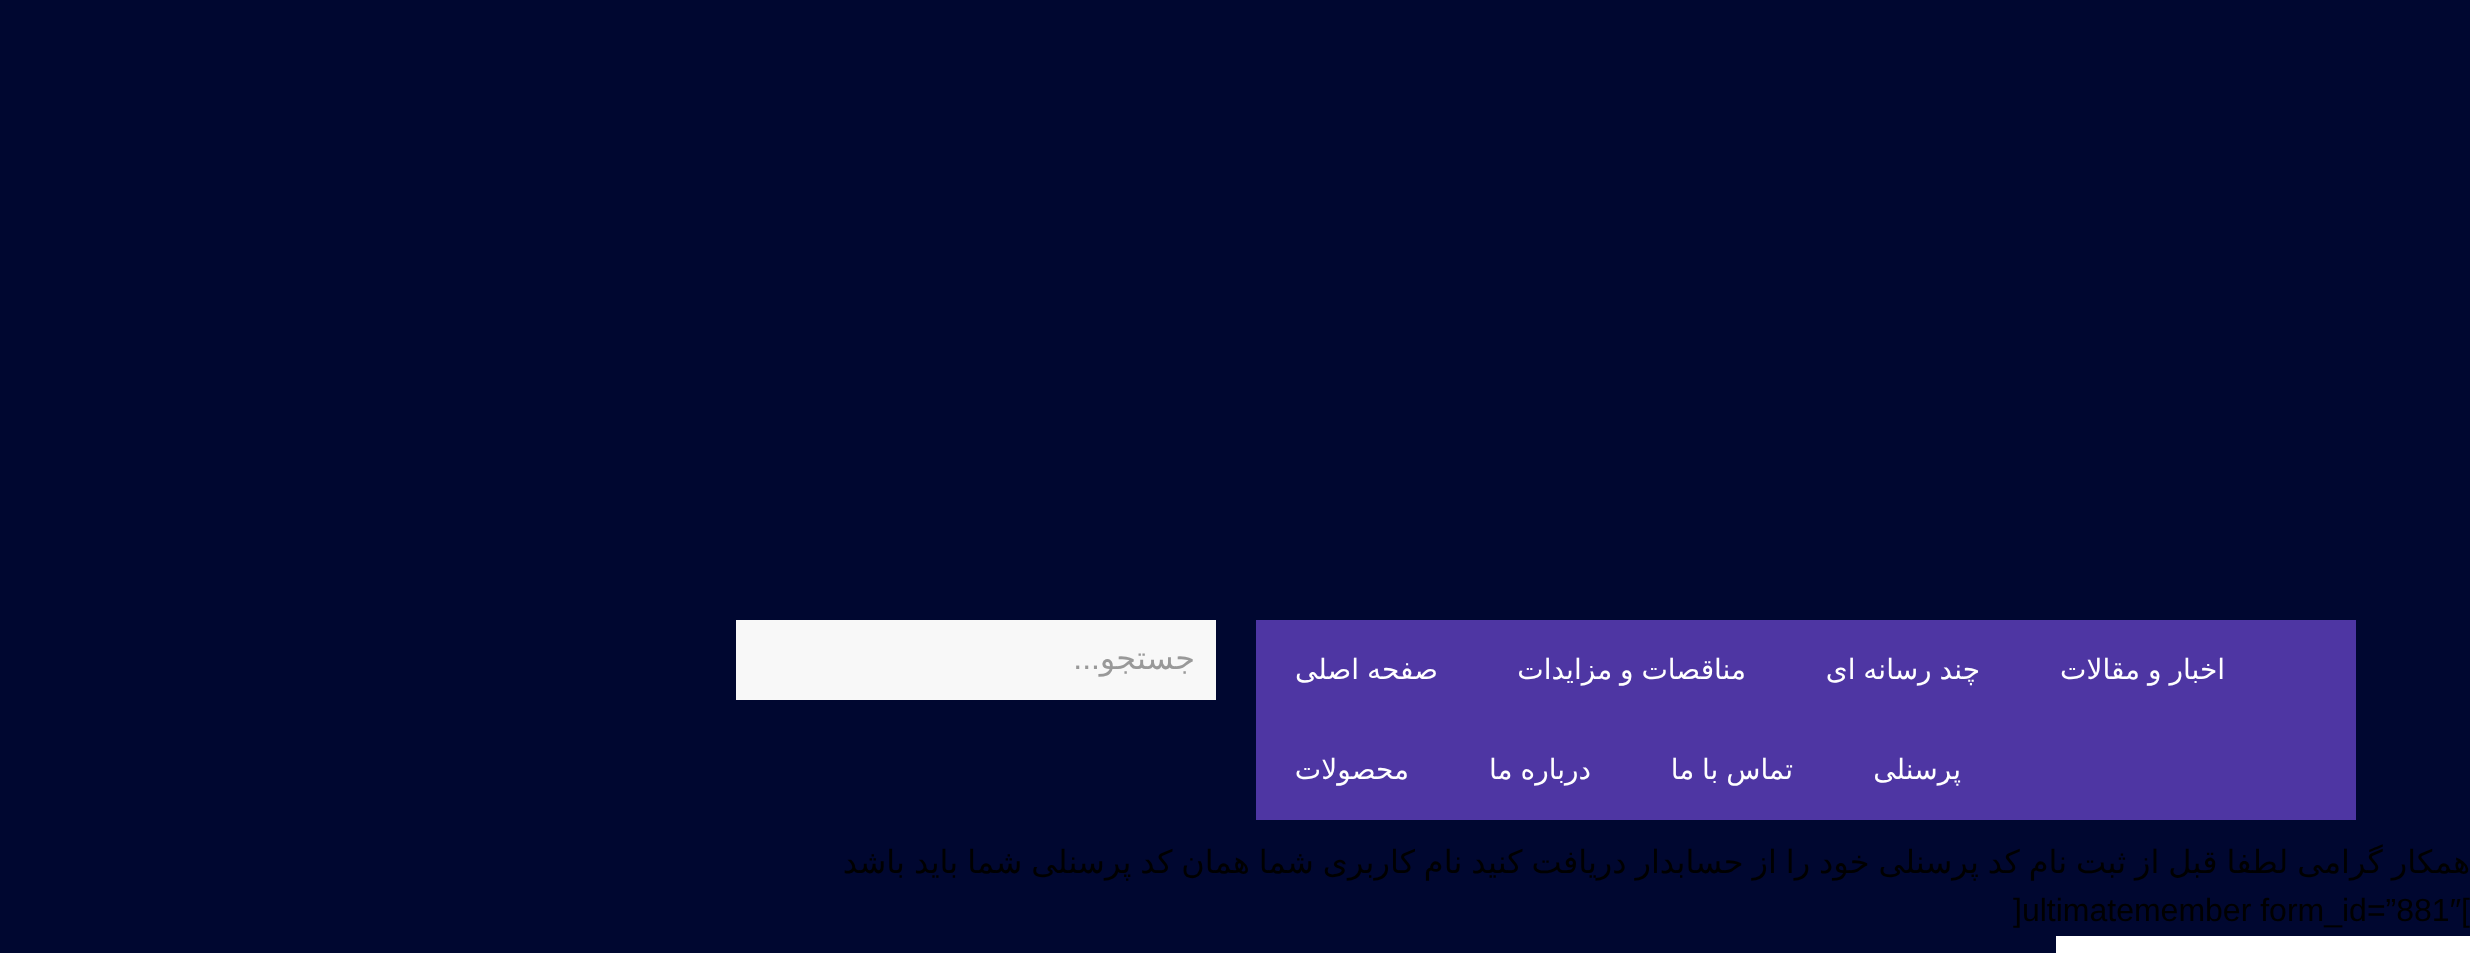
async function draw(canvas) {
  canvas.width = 2470;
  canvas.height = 953;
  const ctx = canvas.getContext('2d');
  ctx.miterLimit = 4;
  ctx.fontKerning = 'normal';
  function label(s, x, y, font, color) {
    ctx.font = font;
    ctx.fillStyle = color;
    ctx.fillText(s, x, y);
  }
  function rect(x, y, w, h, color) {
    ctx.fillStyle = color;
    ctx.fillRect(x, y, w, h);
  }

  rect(0, 0, 2470, 953, '#000730');
  rect(1256, 620, 1100, 200, '#4e36a3');
  ctx.wordSpacing = '-1px';
  ctx.direction = 'rtl';
  label('اخبار و مقالات', 2225, 679, '28px DejaVu Sans', '#fff');
  label('چند رسانه ای', 1980, 679, '28px DejaVu Sans', '#fff');
  label('مناقصات و مزایدات', 1746, 679, '28px DejaVu Sans', '#fff');
  label('صفحه اصلی', 1438, 679, '28px DejaVu Sans', '#fff');
  ctx.wordSpacing = '0px';
  label('پرسنلی', 1961, 779, '28px DejaVu Sans', '#fff');
  ctx.wordSpacing = '-1px';
  label('تماس با ما', 1793, 779, '28px DejaVu Sans', '#fff');
  label('درباره ما', 1591, 779, '28px DejaVu Sans', '#fff');
  ctx.wordSpacing = '0px';
  label('محصولات', 1409, 779, '28px DejaVu Sans', '#fff');
  rect(736, 620, 480, 80, '#f8f8f8');
  label('جستجو', 1195, 669, '32px DejaVu Sans', '#999');
  label('...', 1100, 669, '32px Liberation Sans', '#999');
  ctx.wordSpacing = '-1.25px';
  label('همکار گرامی لطفا قبل از ثبت نام کد پرسنلی خود را از حسابدار دریافت کنید نام کاربری شما همان کد پرسنلی شما باید باشد', 2470, 873, '32px DejaVu Sans', '#000');
  ctx.wordSpacing = '0px';
  ctx.direction = 'ltr';
  label(']ultimatemember form_id=”881″[', 2013, 921, '32px Liberation Sans', '#000');
  rect(2056, 936, 414, 17, '#fff');
}

draw(document.querySelector('canvas'));
